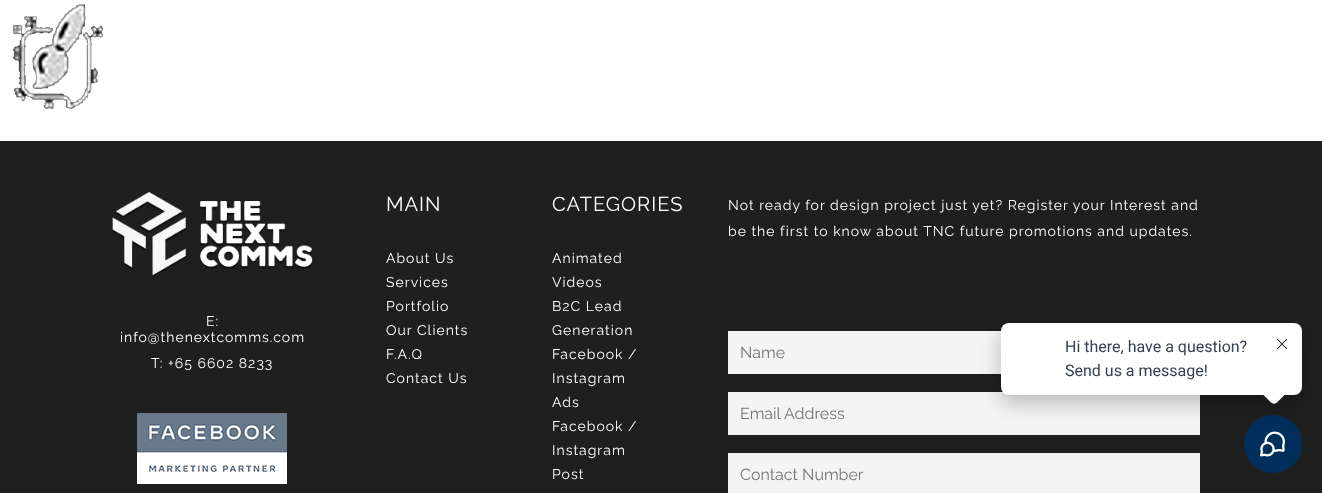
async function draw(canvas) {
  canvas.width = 1322;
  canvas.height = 493;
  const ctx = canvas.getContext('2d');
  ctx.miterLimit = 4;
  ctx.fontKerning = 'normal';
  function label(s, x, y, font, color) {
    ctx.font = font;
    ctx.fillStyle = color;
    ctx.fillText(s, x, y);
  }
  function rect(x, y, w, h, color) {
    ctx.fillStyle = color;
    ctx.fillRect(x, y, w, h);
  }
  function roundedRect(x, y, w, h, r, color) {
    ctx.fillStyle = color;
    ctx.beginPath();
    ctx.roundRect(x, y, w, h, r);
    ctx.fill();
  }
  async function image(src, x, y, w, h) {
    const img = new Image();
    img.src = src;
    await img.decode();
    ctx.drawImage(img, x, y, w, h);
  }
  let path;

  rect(0, 0, 1322, 493, '#fff');
  await image('assets/img1.png', 13, 4, 90, 105);
  rect(0, 141, 1322, 352, '#1f1f1f');
  await image('assets/img2.png', 112, 192, 201, 85);
  ctx.letterSpacing = '1px';
  label('E:', 206, 326, '14px Raleway', '#fff');
  label('info@thenextcomms.com', 120, 342, '14px Raleway', '#fff');
  label('T: +65 6602 8233', 151, 368, '14px Raleway', '#fff');
  await image('assets/img3.png', 137, 413, 150, 71);
  label('MAIN', 386, 211, '20px Raleway', '#fff');
  label('About Us', 386, 263, '14px Raleway', '#fff');
  label('Services', 386, 287, '14px Raleway', '#fff');
  label('Portfolio', 386, 311, '14px Raleway', '#fff');
  label('Our Clients', 386, 335, '14px Raleway', '#fff');
  label('F.A.Q', 386, 359, '14px Raleway', '#fff');
  label('Contact Us', 386, 383, '14px Raleway', '#fff');
  label('CATEGORIES', 552, 211, '20px Raleway', '#fff');
  label('Animated', 552, 263, '14px Raleway', '#fff');
  label('Videos', 552, 287, '14px Raleway', '#fff');
  label('B2C Lead', 552, 311, '14px Raleway', '#fff');
  label('Generation', 552, 335, '14px Raleway', '#fff');
  label('Facebook /', 552, 359, '14px Raleway', '#fff');
  label('Instagram', 552, 383, '14px Raleway', '#fff');
  label('Ads', 552, 407, '14px Raleway', '#fff');
  label('Facebook /', 552, 431, '14px Raleway', '#fff');
  label('Instagram', 552, 455, '14px Raleway', '#fff');
  label('Post', 552, 479, '14px Raleway', '#fff');
  label('Not ready for design project just yet? Register your Interest and', 728, 210, '14px Raleway', '#fff');
  label('be the first to know about TNC future promotions and updates.', 728, 236, '14px Raleway', '#fff');
  rect(728, 331, 273, 43, '#f4f4f4');
  ctx.letterSpacing = '0px';
  label('Name', 740, 358, '16px Raleway', '#757575');
  rect(728, 392, 472, 43, '#f4f4f4');
  label('Email Address', 740, 419, '16px Raleway', '#757575');
  rect(728, 453, 472, 40, '#f4f4f4');
  label('Contact Number', 740, 480, '16px Raleway', '#757575');
  ctx.fillStyle = '#002f5b';
  ctx.beginPath();
  ctx.arc(1273, 444, 29, 0, 2 * Math.PI);
  ctx.fill();
  await image('assets/img5.png', 1260, 431, 25, 26);
  ctx.fillStyle = '#0000003d';
  ctx.filter = 'blur(10px)';
  ctx.beginPath();
  ctx.roundRect(1001, 331, 301, 72, 8);
  ctx.fill();
  ctx.filter = 'none';
  roundedRect(1001, 323, 301, 72, 8, '#fff');
  label('Hi there, have a question?', 1065, 352, '16px Roboto', '#344054');
  label('Send us a message!', 1065, 376, '16px Roboto', '#344054');
  ctx.fillStyle = '#fff';
  path = new Path2D('M1277 379.5L1285.5 388C1287 389.5 1287 392.5 1285.5 394L1277 402.5C1275.5 404 1272.5 404 1271 402.5L1262.5 394C1261 392.5 1261 389.5 1262.5 388L1271 379.5C1272.5 378 1275.5 378 1277 379.5Z');
  ctx.fill(path);
  await image('assets/img4.png', 1277, 339, 10, 10);
}

draw(document.querySelector('canvas'));
